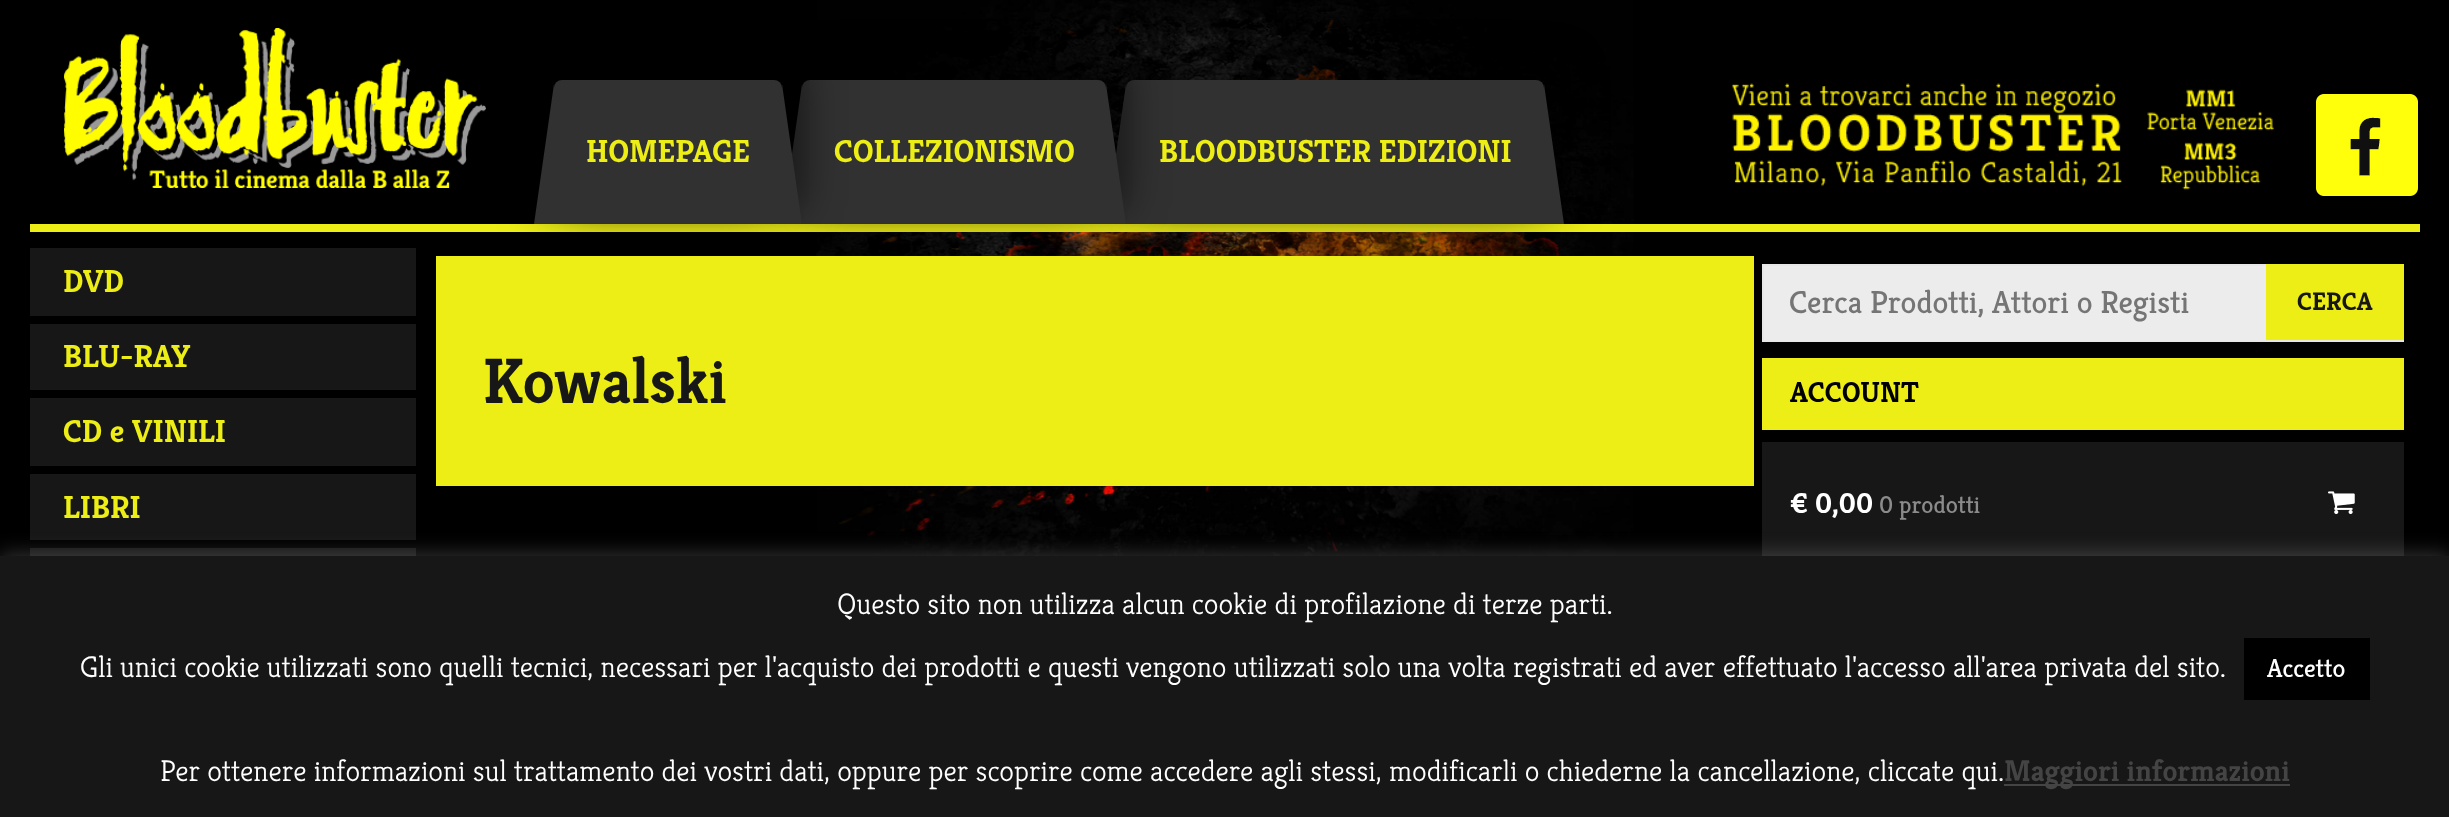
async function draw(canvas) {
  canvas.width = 2449;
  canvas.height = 817;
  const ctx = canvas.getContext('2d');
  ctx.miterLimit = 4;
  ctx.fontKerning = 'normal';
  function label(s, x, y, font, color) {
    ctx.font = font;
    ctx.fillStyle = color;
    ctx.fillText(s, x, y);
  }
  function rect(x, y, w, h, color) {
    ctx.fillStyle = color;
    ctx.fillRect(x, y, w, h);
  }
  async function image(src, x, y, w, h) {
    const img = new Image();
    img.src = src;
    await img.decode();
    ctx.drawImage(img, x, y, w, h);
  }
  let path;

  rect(0, 0, 2449, 817, '#000');
  await image('assets/img1.png', 816, 0, 818, 556);
  await image('assets/img2.png', 64, 28, 422, 160);
  rect(30, 224, 2390, 8, '#eeee17');
  rect(436, 256, 1318, 230, '#eeee17');
  ctx.fillStyle = '#00000080';
  ctx.filter = 'blur(20px)';
  ctx.beginPath();
  ctx.roundRect(1146, 66, 418, 144, 8);
  ctx.fill();
  ctx.filter = 'none';
  ctx.filter = 'blur(20px)';
  ctx.beginPath();
  ctx.roundRect(1106, 66, 418, 144, 8);
  ctx.fill();
  ctx.filter = 'none';
  ctx.fillStyle = '#313131';
  ctx.beginPath();
  ctx.roundRect(1126, 80, 418, 144, [8, 8, 0, 0]);
  ctx.fill();
  path = new Path2D('M1126 84V224H1106Z');
  ctx.fill(path);
  ctx.fillStyle = '#00000080';
  ctx.filter = 'blur(20px)';
  ctx.beginPath();
  ctx.roundRect(822, 66, 304, 144, 8);
  ctx.fill();
  ctx.filter = 'none';
  ctx.filter = 'blur(20px)';
  ctx.beginPath();
  ctx.roundRect(782, 66, 304, 144, 8);
  ctx.fill();
  ctx.filter = 'none';
  ctx.fillStyle = '#313131';
  ctx.beginPath();
  ctx.roundRect(802, 80, 304, 144, [8, 8, 0, 0]);
  ctx.fill();
  path = new Path2D('M802 84V224H782Z');
  ctx.fill(path);
  ctx.fillStyle = '#00000080';
  ctx.filter = 'blur(20px)';
  ctx.beginPath();
  ctx.roundRect(574, 66, 228, 144, 8);
  ctx.fill();
  ctx.filter = 'none';
  ctx.filter = 'blur(20px)';
  ctx.beginPath();
  ctx.roundRect(534, 66, 228, 144, 8);
  ctx.fill();
  ctx.filter = 'none';
  ctx.fillStyle = '#313131';
  ctx.beginPath();
  ctx.roundRect(554, 80, 228, 144, [8, 8, 0, 0]);
  ctx.fill();
  path = new Path2D('M554 84V224H534Z');
  ctx.fill(path);
  label('HOMEPAGE', 586, 162, 'bold 32px Kreon', '#eeee17');
  ctx.fillStyle = '#313131';
  path = new Path2D('M782 224V84L802 224Z');
  ctx.fill(path);
  label('COLLEZIONISMO', 834, 162, 'bold 32px Kreon', '#eeee17');
  ctx.fillStyle = '#313131';
  path = new Path2D('M1106 224V84L1126 224Z');
  ctx.fill(path);
  label('BLOODBUSTER EDIZIONI', 1159, 162, 'bold 32px Kreon', '#eeee17');
  ctx.fillStyle = '#313131';
  path = new Path2D('M1544 224V84L1564 224Z');
  ctx.fill(path);
  await image('assets/img3.png', 1732, 83, 542, 107);
  await image('assets/img4.png', 2316, 94, 102, 102);
  rect(30, 248, 386, 68, '#171717');
  label('DVD', 63, 292, 'bold 32px Kreon', '#eeee17');
  rect(30, 324, 386, 66, '#171717');
  label('BLU-RAY', 63, 367, 'bold 32px Kreon', '#eeee17');
  rect(30, 398, 386, 68, '#171717');
  label('CD e VINILI', 63, 442, 'bold 32px Kreon', '#eeee17');
  rect(30, 474, 386, 66, '#171717');
  label('LIBRI', 63, 518, 'bold 32px Kreon', '#eeee17');
  rect(30, 548, 386, 8, '#171717');
  label('Kowalski', 483, 403, 'bold 64px Kreon', '#171717');
  rect(1764, 266, 502, 74, '#ececec');
  ctx.strokeStyle = '#e7e7e7';
  ctx.lineWidth = 2;
  ctx.strokeRect(1763, 265, 640, 76);
  label('Cerca Prodotti, Attori o Registi', 1789, 313, '32px Kreon', '#757575');
  rect(2266, 264, 138, 76, '#eeee17');
  label('CERCA', 2297, 310, 'bold 25.5px Kreon', '#171717');
  rect(1762, 358, 642, 72, '#eeee17');
  label('ACCOUNT', 1790, 402, 'bold 29px Kreon', '#000');
  rect(1762, 442, 642, 114, '#171717');
  label('€ 0,00', 1790, 513, 'bold 29px Kreon', '#fff');
  label('0 prodotti', 1879, 513, '24.5px Kreon', '#8b8b8b');
  await image('assets/img5.png', 2328, 491, 27, 23);
  ctx.fillStyle = '#acabab4d';
  ctx.filter = 'blur(10px)';
  ctx.beginPath();
  ctx.rect(0, 554, 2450, 262);
  ctx.fill();
  ctx.filter = 'none';
  rect(0, 556, 2449, 261, '#171717');
  label('Questo sito non utilizza alcun cookie di profilazione di terze parti.', 837, 614, '300 30px Kreon', '#fff');
  label('Gli unici cookie utilizzati sono quelli tecnici, necessari per l\'acquisto dei prodotti e questi vengono utilizzati solo una volta registrati ed aver effettuato l\'accesso all\'area privata del sito.', 80, 677, '300 30px Kreon', '#fff');
  rect(2244, 638, 126, 62, '#000');
  label('Accetto', 2267, 677, '26px Kreon', '#fff');
  label('Per ottenere informazioni sul trattamento dei vostri dati, oppure per scoprire come accedere agli stessi, modificarli o chiederne la cancellazione, cliccate qui.', 160, 781, '300 30px Kreon', '#fff');
  rect(2004, 784, 286, 2, '#444');
  label('Maggiori informazioni', 2004, 781, 'bold 30px Kreon', '#444');
}

draw(document.querySelector('canvas'));
